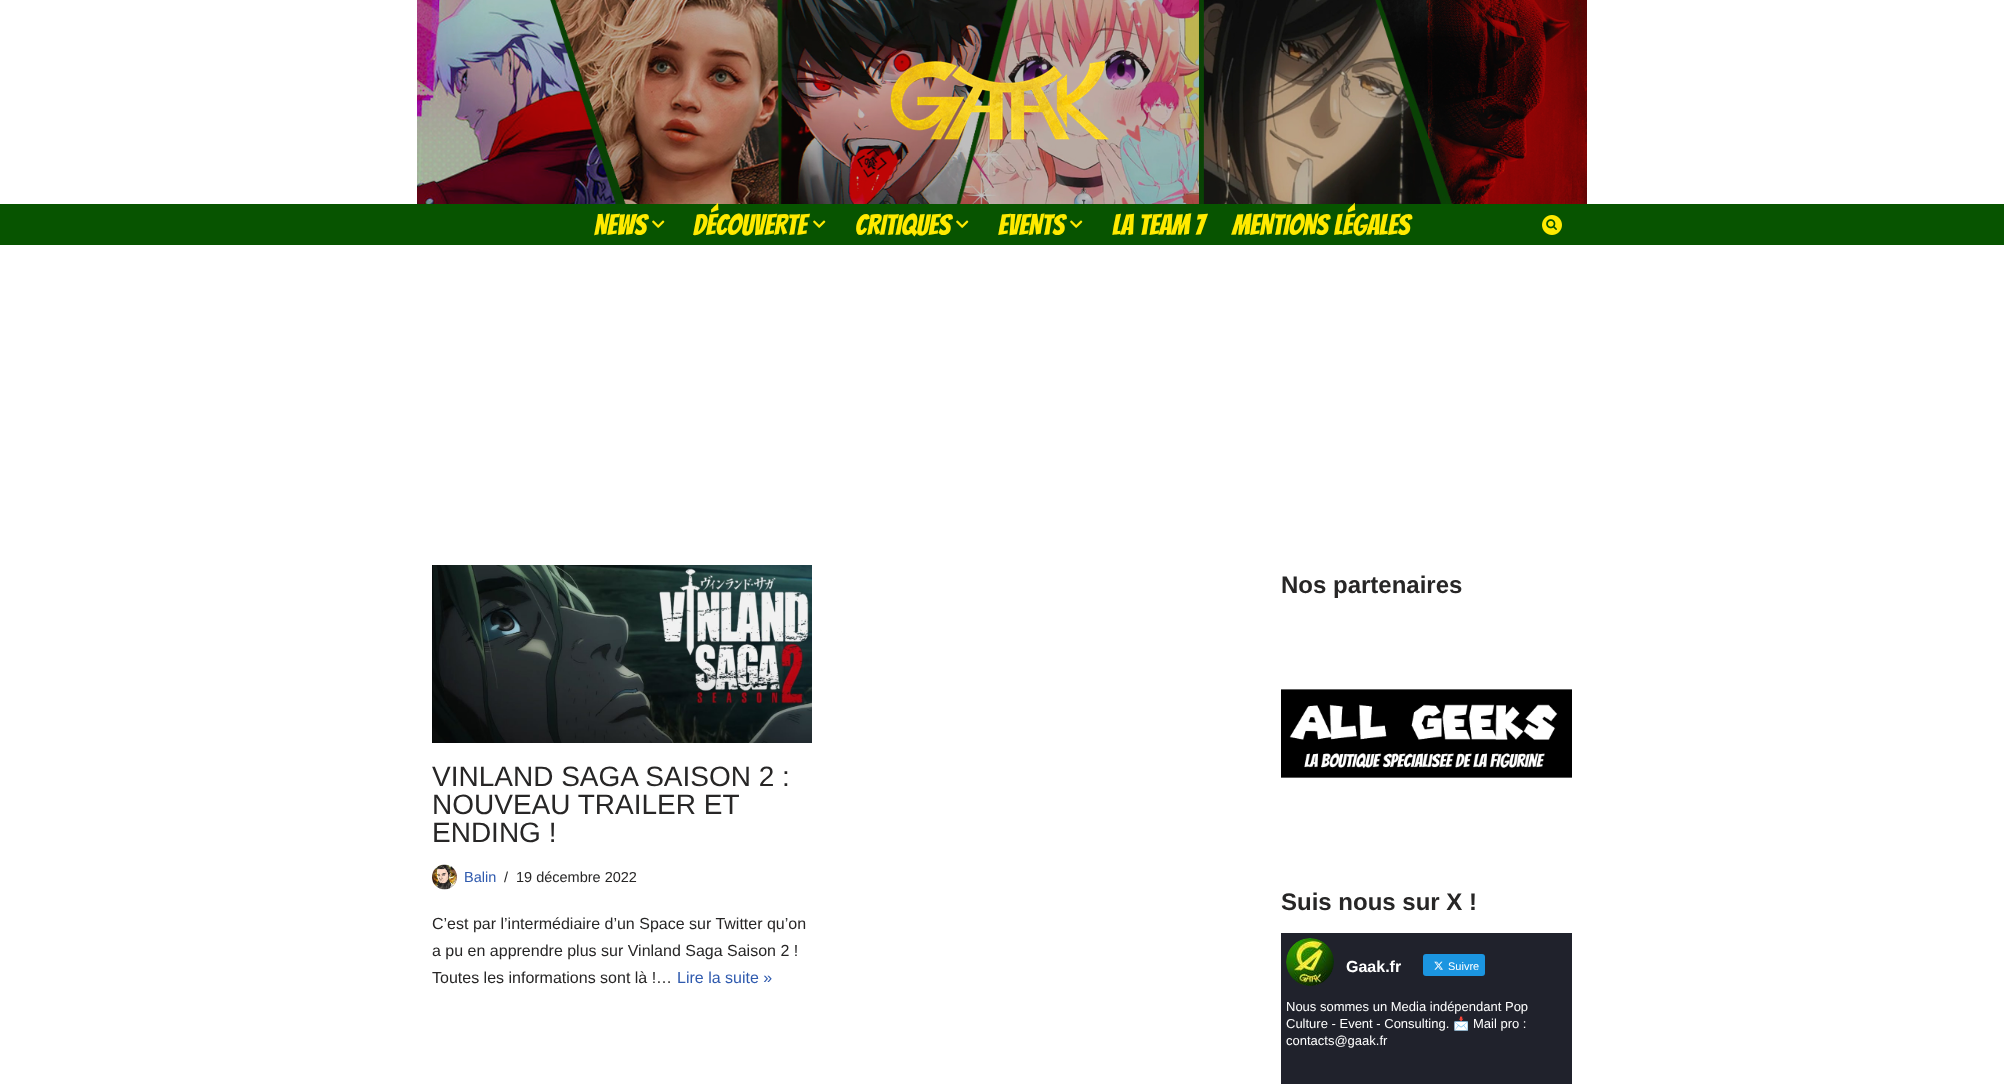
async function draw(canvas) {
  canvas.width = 2004;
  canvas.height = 1084;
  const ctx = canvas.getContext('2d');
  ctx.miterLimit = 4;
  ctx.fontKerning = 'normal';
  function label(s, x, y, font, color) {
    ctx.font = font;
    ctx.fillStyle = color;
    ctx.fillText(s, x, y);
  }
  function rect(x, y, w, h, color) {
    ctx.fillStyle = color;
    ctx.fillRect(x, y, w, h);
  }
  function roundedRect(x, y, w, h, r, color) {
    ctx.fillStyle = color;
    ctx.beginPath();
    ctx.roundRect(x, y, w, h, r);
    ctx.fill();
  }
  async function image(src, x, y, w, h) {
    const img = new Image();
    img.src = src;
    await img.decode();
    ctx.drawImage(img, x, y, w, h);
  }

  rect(0, 0, 2004, 1084, '#fff');
  await image('assets/img1.png', 417, 0, 1170, 204);
  await image('assets/img2.png', 890, 60, 219, 80);
  rect(0, 204, 2004, 41, '#075400');
  label('NEWS', 594, 235, '28.75px Bangers', '#ffea00');
  await image('assets/img3.png', 652, 220, 13, 8);
  label('DÉCOUVERTE', 693, 235, '28.75px Bangers', '#ffea00');
  await image('assets/img3.png', 813, 220, 13, 8);
  label('CRITIQUES', 855, 235, '28.75px Bangers', '#ffea00');
  await image('assets/img3.png', 956, 220, 13, 8);
  label('EVENTS', 998, 235, '28.75px Bangers', '#ffea00');
  await image('assets/img3.png', 1070, 220, 13, 8);
  label('LA TEAM 7', 1112, 235, '28.75px Bangers', '#ffea00');
  label('MENTIONS LÉGALES', 1232, 235, '28.75px Bangers', '#ffea00');
  await image('assets/img4.png', 1542, 215, 20, 20);
  await image('assets/img5.png', 432, 565, 380, 178);
  label('VINLAND SAGA SAISON 2 :', 432, 786, '28px Liberation Sans', '#272626');
  label('NOUVEAU TRAILER ET', 432, 814, '28px Liberation Sans', '#272626');
  label('ENDING !', 432, 842, '28px Liberation Sans', '#272626');
  await image('assets/img6.png', 432, 864, 25, 26);
  label('Balin', 464, 882, '14.5px Liberation Sans', '#2f5aae');
  label('/', 504, 882, '14.5px Liberation Sans', '#272626');
  label('19 décembre 2022', 516, 882, '14.5px Liberation Sans', '#272626');
  label('C’est par l’intermédiaire d’un Space sur Twitter qu’on', 432, 929, '16px Liberation Sans', '#272626');
  label('a pu en apprendre plus sur Vinland Saga Saison 2 !', 432, 956, '16px Liberation Sans', '#272626');
  label('Toutes les informations sont là !…', 432, 983, '16px Liberation Sans', '#272626');
  label('Lire la suite »', 677, 983, '16px Liberation Sans', '#2f5aae');
  label('Nos partenaires', 1281, 593, 'bold 24px Liberation Sans', '#272626');
  await image('assets/img7.png', 1281, 689, 291, 89);
  label('Suis nous sur X !', 1281, 910, 'bold 24px Liberation Sans', '#272626');
  rect(1281, 933, 291, 151, '#20222c');
  await image('assets/img8.png', 1286, 938, 48, 48);
  label('Gaak.fr', 1346, 972, 'bold 16px Liberation Sans', '#fff');
  roundedRect(1423, 954, 62, 22, 3, '#1b95e0');
  await image('assets/img9.png', 1434, 961, 9, 9);
  label('Suivre', 1448, 970, '11px Liberation Sans', '#fff');
  label('Nous sommes un Media indépendant Pop', 1286, 1011, '13px Liberation Sans', '#fff');
  label('Culture - Event - Consulting.', 1286, 1028, '13px Liberation Sans', '#fff');
  label('📩', 1453, 1028, '13px Noto Color Emoji', '#fff');
  label('Mail pro :', 1473, 1028, '13px Liberation Sans', '#fff');
  label('contacts@gaak.fr', 1286, 1045, '13px Liberation Sans', '#fff');
}

draw(document.querySelector('canvas'));
